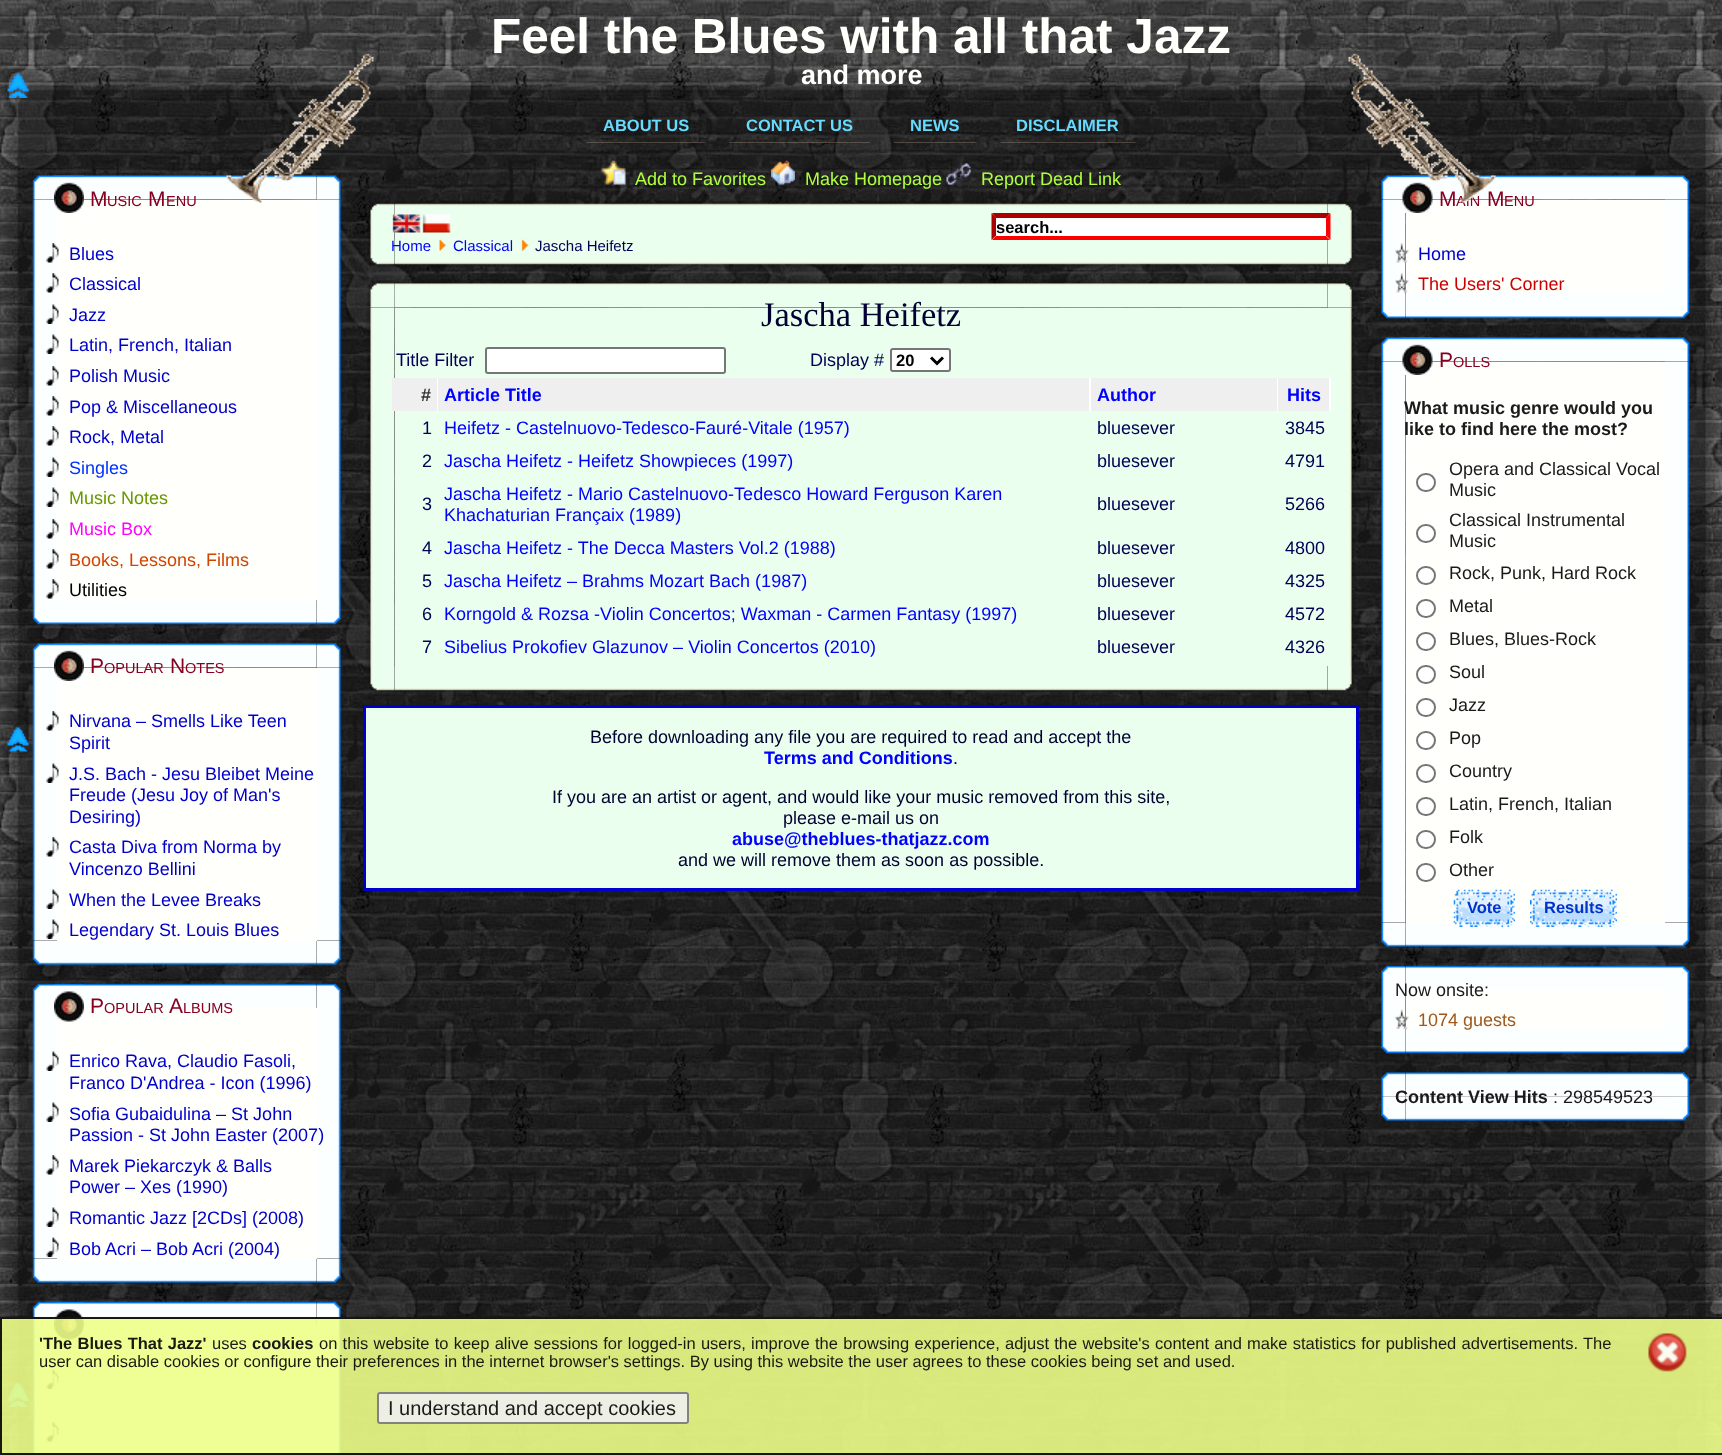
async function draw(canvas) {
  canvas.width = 1722;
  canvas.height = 1455;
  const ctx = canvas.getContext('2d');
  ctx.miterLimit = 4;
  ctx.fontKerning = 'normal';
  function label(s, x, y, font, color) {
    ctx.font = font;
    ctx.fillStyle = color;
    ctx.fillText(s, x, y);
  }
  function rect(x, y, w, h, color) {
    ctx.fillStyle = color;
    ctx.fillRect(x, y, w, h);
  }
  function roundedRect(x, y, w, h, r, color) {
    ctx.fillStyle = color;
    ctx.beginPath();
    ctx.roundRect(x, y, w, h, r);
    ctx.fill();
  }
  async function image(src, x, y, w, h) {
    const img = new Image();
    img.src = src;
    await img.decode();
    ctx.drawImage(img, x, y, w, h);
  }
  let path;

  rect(0, 0, 1722, 1455, '#fff');
  await image('assets/img1.png', 0, 0, 1722, 1455);
  await image('assets/img2.png', 0, 0, 1720, 338);
  label('Feel the Blues with all that Jazz', 491, 53, 'bold 49.5px Liberation Sans', '#fffffc');
  await image('assets/img4.png', 90, 75, 1542, 87);
  label('and more', 801, 84, 'bold 27px Liberation Sans', '#fffffc');
  await image('assets/img3.png', 3, 75, 87, 87);
  await image('assets/img5.png', 1632, 75, 90, 87);
  label('ABOUT US', 603, 131, 'bold 16.5px Liberation Sans', '#67daff');
  await image('assets/img6.png', 586, 142, 113, 1);
  await image('assets/img7.png', 699, 142, 7, 1);
  label('CONTACT US', 746, 131, 'bold 16.5px Liberation Sans', '#67daff');
  await image('assets/img8.png', 728, 142, 136, 1);
  await image('assets/img9.png', 864, 142, 7, 1);
  label('NEWS', 910, 131, 'bold 16.5px Liberation Sans', '#67daff');
  await image('assets/img10.png', 893, 142, 78, 1);
  await image('assets/img11.png', 970, 142, 7, 1);
  label('DISCLAIMER', 1016, 131, 'bold 16.5px Liberation Sans', '#67daff');
  await image('assets/img12.png', 1000, 142, 130, 1);
  await image('assets/img13.png', 1129, 142, 7, 1);
  await image('assets/img113.png', 3, 162, 87, 1293);
  await image('assets/img14.png', 32, 175, 25, 25);
  rect(90, 162, 1542, 1293, '#00000080');
  await image('assets/img16.png', 316, 175, 25, 25);
  await image('assets/img15.png', 57, 175, 260, 25);
  await image('assets/img17.png', 32, 199, 25, 401);
  await image('assets/img21.png', 316, 199, 25, 401);
  rect(57, 200, 260, 400, '#fffffc');
  await image('assets/img18.png', 54, 175, 30, 38);
  label('M', 90, 206, '21px Liberation Sans', '#860022');
  label('USIC', 107, 206, '14.5px Liberation Sans', '#860022');
  label('M', 148, 206, '21px Liberation Sans', '#860022');
  label('ENU', 166, 206, '14.5px Liberation Sans', '#860022');
  await image('assets/img19.png', 46, 243, 13, 20);
  label('Blues', 69, 260, '18px Liberation Sans', '#00c');
  await image('assets/img19.png', 46, 273, 13, 20);
  label('Classical', 69, 290, '18px Liberation Sans', '#00c');
  await image('assets/img20.png', 46, 304, 13, 20);
  label('Jazz', 69, 321, '18px Liberation Sans', '#00c');
  await image('assets/img20.png', 46, 334, 13, 20);
  label('Latin, French, Italian', 69, 351, '18px Liberation Sans', '#00c');
  await image('assets/img19.png', 46, 366, 13, 20);
  label('Polish Music', 69, 382, '18px Liberation Sans', '#00c');
  await image('assets/img19.png', 46, 396, 13, 20);
  label('Pop & Miscellaneous', 69, 413, '18px Liberation Sans', '#00c');
  await image('assets/img19.png', 46, 426, 13, 20);
  label('Rock, Metal', 69, 443, '18px Liberation Sans', '#00c');
  await image('assets/img20.png', 46, 457, 13, 20);
  label('Singles', 69, 474, '18px Liberation Sans', '#03f');
  await image('assets/img20.png', 46, 487, 13, 20);
  label('Music Notes', 69, 504, '18px Liberation Sans', '#690');
  await image('assets/img19.png', 46, 519, 13, 20);
  label('Music Box', 69, 535, '18px Liberation Sans', '#f0f');
  await image('assets/img19.png', 46, 549, 13, 20);
  label('Books, Lessons, Films', 69, 566, '18px Liberation Sans', '#d24400');
  await image('assets/img19.png', 46, 579, 13, 20);
  label('Utilities', 69, 596, '18px Liberation Sans', '#000');
  await image('assets/img22.png', 32, 600, 25, 25);
  await image('assets/img24.png', 316, 600, 25, 25);
  await image('assets/img23.png', 57, 600, 260, 25);
  await image('assets/img25.png', 32, 643, 25, 25);
  await image('assets/img27.png', 316, 643, 25, 25);
  await image('assets/img26.png', 57, 643, 260, 25);
  await image('assets/img31.png', 32, 940, 25, 25);
  await image('assets/img28.png', 32, 667, 25, 274);
  await image('assets/img33.png', 316, 940, 25, 25);
  await image('assets/img30.png', 316, 667, 25, 274);
  rect(57, 668, 260, 273, '#fffffc');
  await image('assets/img29.png', 54, 643, 30, 38);
  label('P', 90, 673, '21px Liberation Sans', '#860022');
  label('OPULAR', 104, 673, '14.5px Liberation Sans', '#860022');
  label('N', 170, 673, '21px Liberation Sans', '#860022');
  label('OTES', 185, 673, '14.5px Liberation Sans', '#860022');
  await image('assets/img19.png', 46, 711, 13, 20);
  label('Nirvana – Smells Like Teen', 69, 727, '18px Liberation Sans', '#00c');
  label('Spirit', 69, 749, '18px Liberation Sans', '#00c');
  await image('assets/img20.png', 46, 763, 13, 20);
  label('J.S. Bach - Jesu Bleibet Meine', 69, 780, '18px Liberation Sans', '#00c');
  label('Freude (Jesu Joy of Man\'s', 69, 801, '18px Liberation Sans', '#00c');
  label('Desiring)', 69, 823, '18px Liberation Sans', '#00c');
  await image('assets/img19.png', 46, 837, 13, 20);
  label('Casta Diva from Norma by', 69, 853, '18px Liberation Sans', '#00c');
  label('Vincenzo Bellini', 69, 875, '18px Liberation Sans', '#00c');
  await image('assets/img20.png', 46, 889, 13, 20);
  label('When the Levee Breaks', 69, 906, '18px Liberation Sans', '#00c');
  await image('assets/img20.png', 46, 919, 13, 20);
  label('Legendary St. Louis Blues', 69, 936, '18px Liberation Sans', '#00c');
  await image('assets/img32.png', 57, 941, 260, 24);
  await image('assets/img34.png', 32, 983, 25, 25);
  await image('assets/img36.png', 316, 983, 25, 25);
  await image('assets/img35.png', 57, 983, 260, 25);
  await image('assets/img40.png', 32, 1258, 25, 25);
  await image('assets/img37.png', 32, 1008, 25, 251);
  await image('assets/img42.png', 316, 1258, 25, 25);
  rect(57, 1008, 260, 251, '#fffffc');
  await image('assets/img38.png', 54, 984, 30, 38);
  label('P', 90, 1013, '21px Liberation Sans', '#860022');
  label('OPULAR', 104, 1013, '14.5px Liberation Sans', '#860022');
  label('A', 169, 1013, '21px Liberation Sans', '#860022');
  label('LBUMS', 183, 1013, '14.5px Liberation Sans', '#860022');
  await image('assets/img20.png', 46, 1051, 13, 20);
  label('Enrico Rava, Claudio Fasoli,', 69, 1067, '18px Liberation Sans', '#00c');
  label('Franco D\'Andrea - Icon (1996)', 69, 1089, '18px Liberation Sans', '#00c');
  await image('assets/img20.png', 46, 1102, 13, 20);
  label('Sofia Gubaidulina – St John', 69, 1120, '18px Liberation Sans', '#00c');
  await image('assets/img39.png', 317, 1008, 24, 251);
  label('Passion - St John Easter (2007)', 69, 1141, '18px Liberation Sans', '#00c');
  await image('assets/img19.png', 46, 1155, 13, 20);
  label('Marek Piekarczyk & Balls', 69, 1172, '18px Liberation Sans', '#00c');
  label('Power – Xes (1990)', 69, 1193, '18px Liberation Sans', '#00c');
  await image('assets/img20.png', 46, 1207, 13, 20);
  label('Romantic Jazz [2CDs] (2008)', 69, 1224, '18px Liberation Sans', '#00c');
  await image('assets/img20.png', 46, 1237, 13, 20);
  label('Bob Acri – Bob Acri (2004)', 69, 1255, '18px Liberation Sans', '#00c');
  await image('assets/img41.png', 57, 1259, 260, 24);
  await image('assets/img43.png', 32, 1301, 25, 25);
  await image('assets/img45.png', 316, 1301, 25, 25);
  await image('assets/img44.png', 57, 1301, 260, 25);
  await image('assets/img46.png', 32, 1326, 25, 129);
  rect(57, 1326, 260, 129, '#fffffc');
  await image('assets/img38.png', 54, 1302, 30, 38);
  await image('assets/img20.png', 46, 1369, 13, 20);
  await image('assets/img19.png', 46, 1422, 13, 20);
  await image('assets/img47.png', 317, 1326, 24, 129);
  await image('assets/img48.png', 7, 73, 22, 25);
  await image('assets/img49.png', 601, 160, 25, 25);
  label('Add to Favorites', 635, 185, '18px Liberation Sans', '#afff40');
  await image('assets/img50.png', 771, 160, 24, 25);
  label('Make Homepage', 805, 185, '18px Liberation Sans', '#afff40');
  await image('assets/img51.png', 946, 163, 25, 22);
  label('Report Dead Link', 981, 185, '18px Liberation Sans', '#afff40');
  await image('assets/img52.png', 7, 727, 22, 25);
  await image('assets/img53.png', 7, 1382, 22, 25);
  await image('assets/img54.png', 368, 201, 27, 27);
  await image('assets/img56.png', 1327, 202, 28, 26);
  await image('assets/img55.png', 394, 200, 934, 28);
  await image('assets/img57.png', 367, 228, 28, 12);
  rect(395, 228, 597, 12, '#ebffef');
  await image('assets/img58.png', 392, 214, 29, 19);
  await image('assets/img59.png', 422, 214, 29, 19);
  rect(992, 213, 339, 27, '#fff');
  ctx.fillStyle = '#a00';
  path = new Path2D('M992 213H1330L1326 218H996Z');
  ctx.fill(path);
  ctx.fillStyle = '#f00';
  path = new Path2D('M1330.5 213V240L1326 235.5V217.5Z');
  ctx.fill(path);
  path = new Path2D('M1330 240H992L996 236H1326Z');
  ctx.fill(path);
  ctx.fillStyle = '#a00';
  path = new Path2D('M991.5 240V213L996 217.5V235.5Z');
  ctx.fill(path);
  label('search...', 996, 233, 'bold 16.5px Liberation Sans', '#000');
  await image('assets/img63.png', 367, 240, 28, 28);
  await image('assets/img65.png', 1327, 240, 28, 28);
  await image('assets/img64.png', 394, 240, 934, 28);
  label('Home', 391, 251, '15px Liberation Sans', '#00f');
  await image('assets/img60.png', 439, 239, 7, 12);
  label('Classical', 453, 251, '15px Liberation Sans', '#00f');
  await image('assets/img61.png', 521, 239, 8, 12);
  label('Jascha Heifetz', 535, 251, '15px Liberation Sans', '#005');
  await image('assets/img62.png', 1331, 228, 24, 12);
  await image('assets/img66.png', 367, 280, 28, 28);
  await image('assets/img68.png', 1327, 281, 28, 27);
  await image('assets/img67.png', 394, 279, 934, 29);
  await image('assets/img69.png', 366, 307, 29, 359);
  await image('assets/img70.png', 1327, 307, 29, 359);
  rect(395, 308, 933, 358, '#ebffef');
  label('Jascha Heifetz', 761, 326, '34.5px Liberation Serif', '#003');
  label('Title Filter', 396, 366, '18px Liberation Sans', '#005');
  ctx.fillStyle = '#fff';
  ctx.beginPath();
  ctx.roundRect(486, 348, 239, 25, 2);
  ctx.fill();
  ctx.strokeStyle = '#767676';
  ctx.lineWidth = 2;
  ctx.stroke();
  label('Display #', 810, 366, '18px Liberation Sans', '#005');
  ctx.fillStyle = '#fff';
  ctx.beginPath();
  ctx.roundRect(891, 349, 59, 22, 2);
  ctx.fill();
  ctx.stroke();
  path = new Path2D('M931 357.5L937 363.5L943 357.5');
  ctx.strokeStyle = '#000';
  ctx.lineWidth = 3;
  ctx.stroke(path);
  label('20', 896, 366, 'bold 16.5px Liberation Sans', '#000');
  rect(392, 378, 45, 33, '#efefef');
  rect(437, 378, 1, 33, '#fff');
  label('#', 421, 401, 'bold 18px Liberation Sans', '#333');
  rect(438, 378, 651, 33, '#efefef');
  rect(1089, 378, 2, 33, '#fff');
  label('Article Title', 444, 401, 'bold 18px Liberation Sans', '#00f');
  rect(1091, 378, 186, 33, '#efefef');
  rect(1277, 378, 1, 33, '#fff');
  label('Author', 1097, 401, 'bold 18px Liberation Sans', '#00f');
  rect(1278, 378, 51, 33, '#efefef');
  rect(1329, 378, 2, 33, '#fff');
  label('Hits', 1287, 401, 'bold 18px Liberation Sans', '#00f');
  label('1', 422, 434, '18px Liberation Sans', '#005');
  label('Heifetz - Castelnuovo-Tedesco-Fauré-Vitale (1957)', 444, 434, '18px Liberation Sans', '#00f');
  label('bluesever', 1097, 434, '18px Liberation Sans', '#005');
  label('3845', 1285, 434, '18px Liberation Sans', '#005');
  label('2', 422, 467, '18px Liberation Sans', '#005');
  label('Jascha Heifetz - Heifetz Showpieces (1997)', 444, 467, '18px Liberation Sans', '#00f');
  label('bluesever', 1097, 467, '18px Liberation Sans', '#005');
  label('4791', 1285, 467, '18px Liberation Sans', '#005');
  label('3', 422, 510, '18px Liberation Sans', '#005');
  label('Jascha Heifetz - Mario Castelnuovo-Tedesco Howard Ferguson Karen', 444, 500, '18px Liberation Sans', '#00f');
  label('Khachaturian Françaix (1989)', 444, 521, '18px Liberation Sans', '#00f');
  label('bluesever', 1097, 510, '18px Liberation Sans', '#005');
  label('5266', 1285, 510, '18px Liberation Sans', '#005');
  label('4', 422, 554, '18px Liberation Sans', '#005');
  label('Jascha Heifetz - The Decca Masters Vol.2 (1988)', 444, 554, '18px Liberation Sans', '#00f');
  label('bluesever', 1097, 554, '18px Liberation Sans', '#005');
  label('4800', 1285, 554, '18px Liberation Sans', '#005');
  label('5', 422, 587, '18px Liberation Sans', '#005');
  label('Jascha Heifetz – Brahms Mozart Bach (1987)', 444, 587, '18px Liberation Sans', '#00f');
  label('bluesever', 1097, 587, '18px Liberation Sans', '#005');
  label('4325', 1285, 587, '18px Liberation Sans', '#005');
  label('6', 422, 620, '18px Liberation Sans', '#005');
  label('Korngold & Rozsa -Violin Concertos; Waxman - Carmen Fantasy (1997)', 444, 620, '18px Liberation Sans', '#00f');
  label('bluesever', 1097, 620, '18px Liberation Sans', '#005');
  label('4572', 1285, 620, '18px Liberation Sans', '#005');
  label('7', 422, 653, '18px Liberation Sans', '#005');
  label('Sibelius Prokofiev Glazunov – Violin Concertos (2010)', 444, 653, '18px Liberation Sans', '#00f');
  label('bluesever', 1097, 653, '18px Liberation Sans', '#005');
  label('4326', 1285, 653, '18px Liberation Sans', '#005');
  await image('assets/img71.png', 367, 666, 28, 27);
  await image('assets/img73.png', 1327, 666, 28, 27);
  await image('assets/img72.png', 394, 666, 934, 28);
  ctx.fillStyle = '#ebffef';
  ctx.beginPath();
  ctx.rect(364.5, 706.5, 993, 183);
  ctx.fill();
  ctx.strokeStyle = '#00c';
  ctx.stroke();
  label('Before downloading any file you are required to read and accept the', 590, 743, '18px Liberation Sans', '#003');
  label('Terms and Conditions', 764, 764, 'bold 18px Liberation Sans', '#00f');
  label('.', 953, 764, '18px Liberation Sans', '#003');
  label('If you are an artist or agent, and would like your music removed from this site,', 552, 803, '18px Liberation Sans', '#003');
  label('please e-mail us on', 783, 824, '18px Liberation Sans', '#003');
  label('abuse@theblues-thatjazz.com', 732, 845, 'bold 18px Liberation Sans', '#00f');
  label('and we will remove them as soon as possible.', 678, 866, '18px Liberation Sans', '#003');
  await image('assets/img74.png', 1381, 175, 25, 25);
  await image('assets/img114.png', 1632, 162, 90, 1293);
  await image('assets/img75.png', 1405, 175, 260, 25);
  await image('assets/img76.png', 1665, 175, 25, 25);
  await image('assets/img77.png', 1381, 199, 25, 95);
  rect(1406, 200, 259, 94, '#fffffc');
  await image('assets/img78.png', 1402, 175, 31, 38);
  label('M', 1439, 206, '21px Liberation Sans', '#860022');
  label('AIN', 1456, 206, '14.5px Liberation Sans', '#860022');
  label('M', 1487, 206, '21px Liberation Sans', '#860022');
  label('ENU', 1504, 206, '14.5px Liberation Sans', '#860022');
  await image('assets/img79.png', 1395, 243, 14, 20);
  label('Home', 1418, 260, '18px Liberation Sans', '#00c');
  await image('assets/img80.png', 1395, 273, 14, 20);
  label('The Users\' Corner', 1418, 290, '18px Liberation Sans', '#c00');
  await image('assets/img81.png', 1665, 199, 25, 95);
  await image('assets/img82.png', 1381, 294, 25, 25);
  await image('assets/img83.png', 1405, 294, 260, 25);
  await image('assets/img84.png', 1665, 294, 25, 25);
  await image('assets/img85.png', 1381, 337, 25, 25);
  await image('assets/img86.png', 1405, 337, 260, 25);
  await image('assets/img87.png', 1665, 337, 25, 25);
  await image('assets/img94.png', 1381, 922, 25, 25);
  await image('assets/img95.png', 1405, 922, 260, 25);
  await image('assets/img88.png', 1381, 361, 25, 562);
  rect(1406, 362, 259, 561, '#fffffc');
  await image('assets/img89.png', 1402, 337, 31, 38);
  label('P', 1439, 367, '21px Liberation Sans', '#860022');
  label('OLLS', 1453, 367, '14.5px Liberation Sans', '#860022');
  label('What music genre would you', 1404, 414, 'bold 18px Liberation Sans', '#1a1a1a');
  label('like to find here the most?', 1404, 435, 'bold 18px Liberation Sans', '#1a1a1a');
  ctx.fillStyle = '#fff';
  ctx.beginPath();
  ctx.roundRect(1417, 474, 18, 17, 8.5);
  ctx.fill();
  ctx.strokeStyle = '#767676';
  ctx.lineWidth = 2;
  ctx.stroke();
  label('Opera and Classical Vocal', 1449, 475, '18px Liberation Sans', '#1a1a1a');
  label('Music', 1449, 496, '18px Liberation Sans', '#1a1a1a');
  ctx.fillStyle = '#fff';
  ctx.beginPath();
  ctx.roundRect(1417, 525, 18, 17, 8.5);
  ctx.fill();
  ctx.stroke();
  label('Classical Instrumental', 1449, 526, '18px Liberation Sans', '#1a1a1a');
  label('Music', 1449, 547, '18px Liberation Sans', '#1a1a1a');
  ctx.fillStyle = '#fff';
  ctx.beginPath();
  ctx.roundRect(1417, 567, 18, 17, 8.5);
  ctx.fill();
  ctx.stroke();
  label('Rock, Punk, Hard Rock', 1449, 579, '18px Liberation Sans', '#1a1a1a');
  ctx.fillStyle = '#fff';
  ctx.beginPath();
  ctx.roundRect(1417, 600, 18, 17, 8.5);
  ctx.fill();
  ctx.stroke();
  label('Metal', 1449, 612, '18px Liberation Sans', '#1a1a1a');
  ctx.fillStyle = '#fff';
  ctx.beginPath();
  ctx.roundRect(1417, 633, 18, 17, 8.5);
  ctx.fill();
  ctx.stroke();
  label('Blues, Blues-Rock', 1449, 645, '18px Liberation Sans', '#1a1a1a');
  ctx.fillStyle = '#fff';
  ctx.beginPath();
  ctx.roundRect(1417, 666, 18, 17, 8.5);
  ctx.fill();
  ctx.stroke();
  label('Soul', 1449, 678, '18px Liberation Sans', '#1a1a1a');
  ctx.fillStyle = '#fff';
  ctx.beginPath();
  ctx.roundRect(1417, 699, 18, 17, 8.5);
  ctx.fill();
  ctx.stroke();
  label('Jazz', 1449, 711, '18px Liberation Sans', '#1a1a1a');
  ctx.fillStyle = '#fff';
  ctx.beginPath();
  ctx.roundRect(1417, 732, 18, 17, 8.5);
  ctx.fill();
  ctx.stroke();
  label('Pop', 1449, 744, '18px Liberation Sans', '#1a1a1a');
  ctx.fillStyle = '#fff';
  ctx.beginPath();
  ctx.roundRect(1417, 765, 18, 17, 8.5);
  ctx.fill();
  ctx.stroke();
  label('Country', 1449, 777, '18px Liberation Sans', '#1a1a1a');
  ctx.fillStyle = '#fff';
  ctx.beginPath();
  ctx.roundRect(1417, 798, 18, 17, 8.5);
  ctx.fill();
  ctx.stroke();
  label('Latin, French, Italian', 1449, 810, '18px Liberation Sans', '#1a1a1a');
  ctx.fillStyle = '#fff';
  ctx.beginPath();
  ctx.roundRect(1417, 831, 18, 17, 8.5);
  ctx.fill();
  ctx.stroke();
  label('Folk', 1449, 843, '18px Liberation Sans', '#1a1a1a');
  ctx.fillStyle = '#fff';
  ctx.beginPath();
  ctx.roundRect(1417, 864, 18, 17, 8.5);
  ctx.fill();
  ctx.stroke();
  label('Other', 1449, 876, '18px Liberation Sans', '#1a1a1a');
  await image('assets/img90.png', 1453, 889, 50, 38);
  await image('assets/img91.png', 1503, 889, 12, 38);
  label('Vote', 1467, 913, 'bold 16.5px Liberation Sans', '#03c');
  await image('assets/img92.png', 1530, 889, 75, 38);
  await image('assets/img91.png', 1605, 889, 12, 38);
  label('Results', 1544, 913, 'bold 16.5px Liberation Sans', '#03c');
  await image('assets/img96.png', 1665, 922, 25, 25);
  await image('assets/img93.png', 1665, 361, 25, 562);
  await image('assets/img97.png', 1381, 965, 25, 25);
  await image('assets/img98.png', 1405, 965, 260, 25);
  await image('assets/img99.png', 1665, 965, 25, 25);
  await image('assets/img100.png', 1381, 990, 25, 39);
  rect(1406, 990, 259, 39, '#fffffc');
  label('Now onsite:', 1395, 996, '18px Liberation Sans', '#1a1a1a');
  await image('assets/img101.png', 1395, 1009, 14, 20);
  await image('assets/img103.png', 1381, 1029, 25, 25);
  await image('assets/img104.png', 1405, 1029, 260, 25);
  label('1074 guests', 1418, 1026, '18px Liberation Sans', '#9f581d');
  await image('assets/img102.png', 1665, 990, 25, 39);
  await image('assets/img105.png', 1665, 1029, 25, 25);
  await image('assets/img106.png', 1381, 1072, 25, 25);
  await image('assets/img109.png', 1381, 1096, 25, 25);
  await image('assets/img107.png', 1405, 1072, 260, 25);
  await image('assets/img108.png', 1665, 1072, 25, 25);
  await image('assets/img110.png', 1405, 1096, 260, 25);
  label('Content View Hits', 1395, 1103, 'bold 18px Liberation Sans', '#1a1a1a');
  label(': 298549523', 1553, 1103, '18px Liberation Sans', '#1a1a1a');
  await image('assets/img111.png', 1665, 1096, 25, 25);
  rect(0, 1317, 1722, 138, '#eeff88e6');
  ctx.strokeStyle = '#000000e6';
  ctx.strokeRect(1, 1318, 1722, 136);
  ctx.wordSpacing = '0.65px';
  label('\'The Blues That Jazz\'', 39, 1349, 'bold 16.5px Liberation Sans', '#181a0f');
  ctx.wordSpacing = '0px';
  label('uses', 212, 1349, '16.5px Liberation Sans', '#1a1a1a');
  label('cookies', 252, 1349, 'bold 16.5px Liberation Sans', '#1a1a1a');
  ctx.wordSpacing = '0.65px';
  label('on this website to keep alive sessions for logged-in users, improve the browsing experience, adjust the website\'s content and make statistics for published advertisements. The', 319, 1349, '16.5px Liberation Sans', '#181a0f');
  ctx.wordSpacing = '0px';
  label('user can disable cookies or configure their preferences in the internet browser\'s settings. By using this website the user agrees to these cookies being set and used.', 39, 1367, '16.5px Liberation Sans', '#181a0f');
  roundedRect(377, 1392, 312, 32, 3, '#efefefe6');
  ctx.beginPath();
  ctx.roundRect(378, 1393, 310, 30, 2);
  ctx.strokeStyle = '#767676e6';
  ctx.stroke();
  label('I understand and accept cookies', 388, 1415, '20px Liberation Sans', '#1a1a1a');
  await image('assets/img112.png', 1648, 1333, 39, 39);
  await image('assets/img115.png', 226, 53, 148, 150);
  await image('assets/img116.png', 1348, 53, 148, 150);
}

draw(document.querySelector('canvas'));
